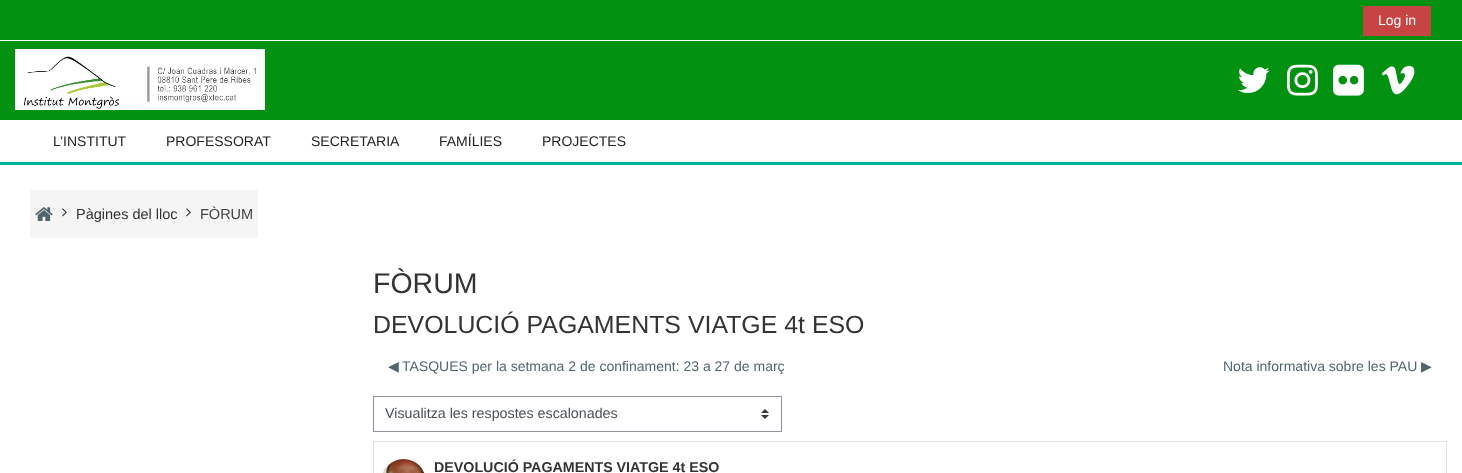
async function draw(canvas) {
  canvas.width = 1462;
  canvas.height = 473;
  const ctx = canvas.getContext('2d');
  ctx.miterLimit = 4;
  ctx.fontKerning = 'normal';
  function label(s, x, y, font, color) {
    ctx.font = font;
    ctx.fillStyle = color;
    ctx.fillText(s, x, y);
  }
  function rect(x, y, w, h, color) {
    ctx.fillStyle = color;
    ctx.fillRect(x, y, w, h);
  }
  async function image(src, x, y, w, h) {
    const img = new Image();
    img.src = src;
    await img.decode();
    ctx.drawImage(img, x, y, w, h);
  }

  rect(0, 0, 1462, 473, '#fff');
  rect(0, 0, 1462, 120, '#029111');
  rect(0, 40, 1462, 1, '#fff');
  rect(1363, 6, 68, 30, '#c64543');
  label('Log in', 1378, 25, '14px Liberation Sans', '#fff');
  await image('assets/img1.png', 15, 49, 250, 61);
  await image('assets/img2.png', 1238, 67, 32, 26);
  await image('assets/img3.png', 1287, 64, 31, 32);
  await image('assets/img4.png', 1333, 64, 31, 32);
  await image('assets/img5.png', 1381, 66, 34, 29);
  rect(0, 162, 1462, 3, '#00b3a1');
  label('L’INSTITUT', 53, 146, '14px Liberation Sans', '#222');
  label('PROFESSORAT', 166, 146, '14px Liberation Sans', '#222');
  label('SECRETARIA', 311, 146, '14px Liberation Sans', '#222');
  label('FAMÍLIES', 439, 146, '14px Liberation Sans', '#222');
  label('PROJECTES', 542, 146, '14px Liberation Sans', '#222');
  rect(30, 190, 228, 48, '#f5f5f5');
  await image('assets/img6.png', 35, 207, 18, 14);
  await image('assets/img7.png', 62, 208, 5, 9);
  label('Pàgines del lloc', 76, 219, '14.5px Liberation Sans', '#333');
  await image('assets/img7.png', 186, 208, 5, 9);
  label('FÒRUM', 200, 219, '14.5px Liberation Sans', '#444');
  label('FÒRUM', 373, 293, '28.5px Liberation Sans', '#333');
  label('DEVOLUCIÓ PAGAMENTS VIATGE 4t ESO', 373, 333, '24.9px Liberation Sans', '#333');
  label('◀︎', 388, 371, '14px DejaVu Sans', '#51666c');
  label('TASQUES per la setmana 2 de confinament: 23 a 27 de març', 402, 371, '14px Liberation Sans', '#51666c');
  label('Nota informativa sobre les PAU', 1223, 371, '14px Liberation Sans', '#51666c');
  label('▶︎', 1421, 371, '14px DejaVu Sans', '#51666c');
  await image('assets/img8.png', 761, 409, 8, 10);
  ctx.strokeStyle = '#8f959e';
  ctx.strokeRect(373.5, 396.5, 408, 35);
  label('Visualitza les respostes escalonades', 385, 418, '14.25px Liberation Sans', '#495057');
  ctx.strokeStyle = '#dee2e6';
  ctx.strokeRect(373.5, 441.5, 1073, 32);
  await image('assets/img9.png', 382, 459, 43, 14);
  label('DEVOLUCIÓ PAGAMENTS VIATGE 4t ESO', 434, 472, 'bold 14.25px Liberation Sans', '#333');
}

draw(document.querySelector('canvas'));
